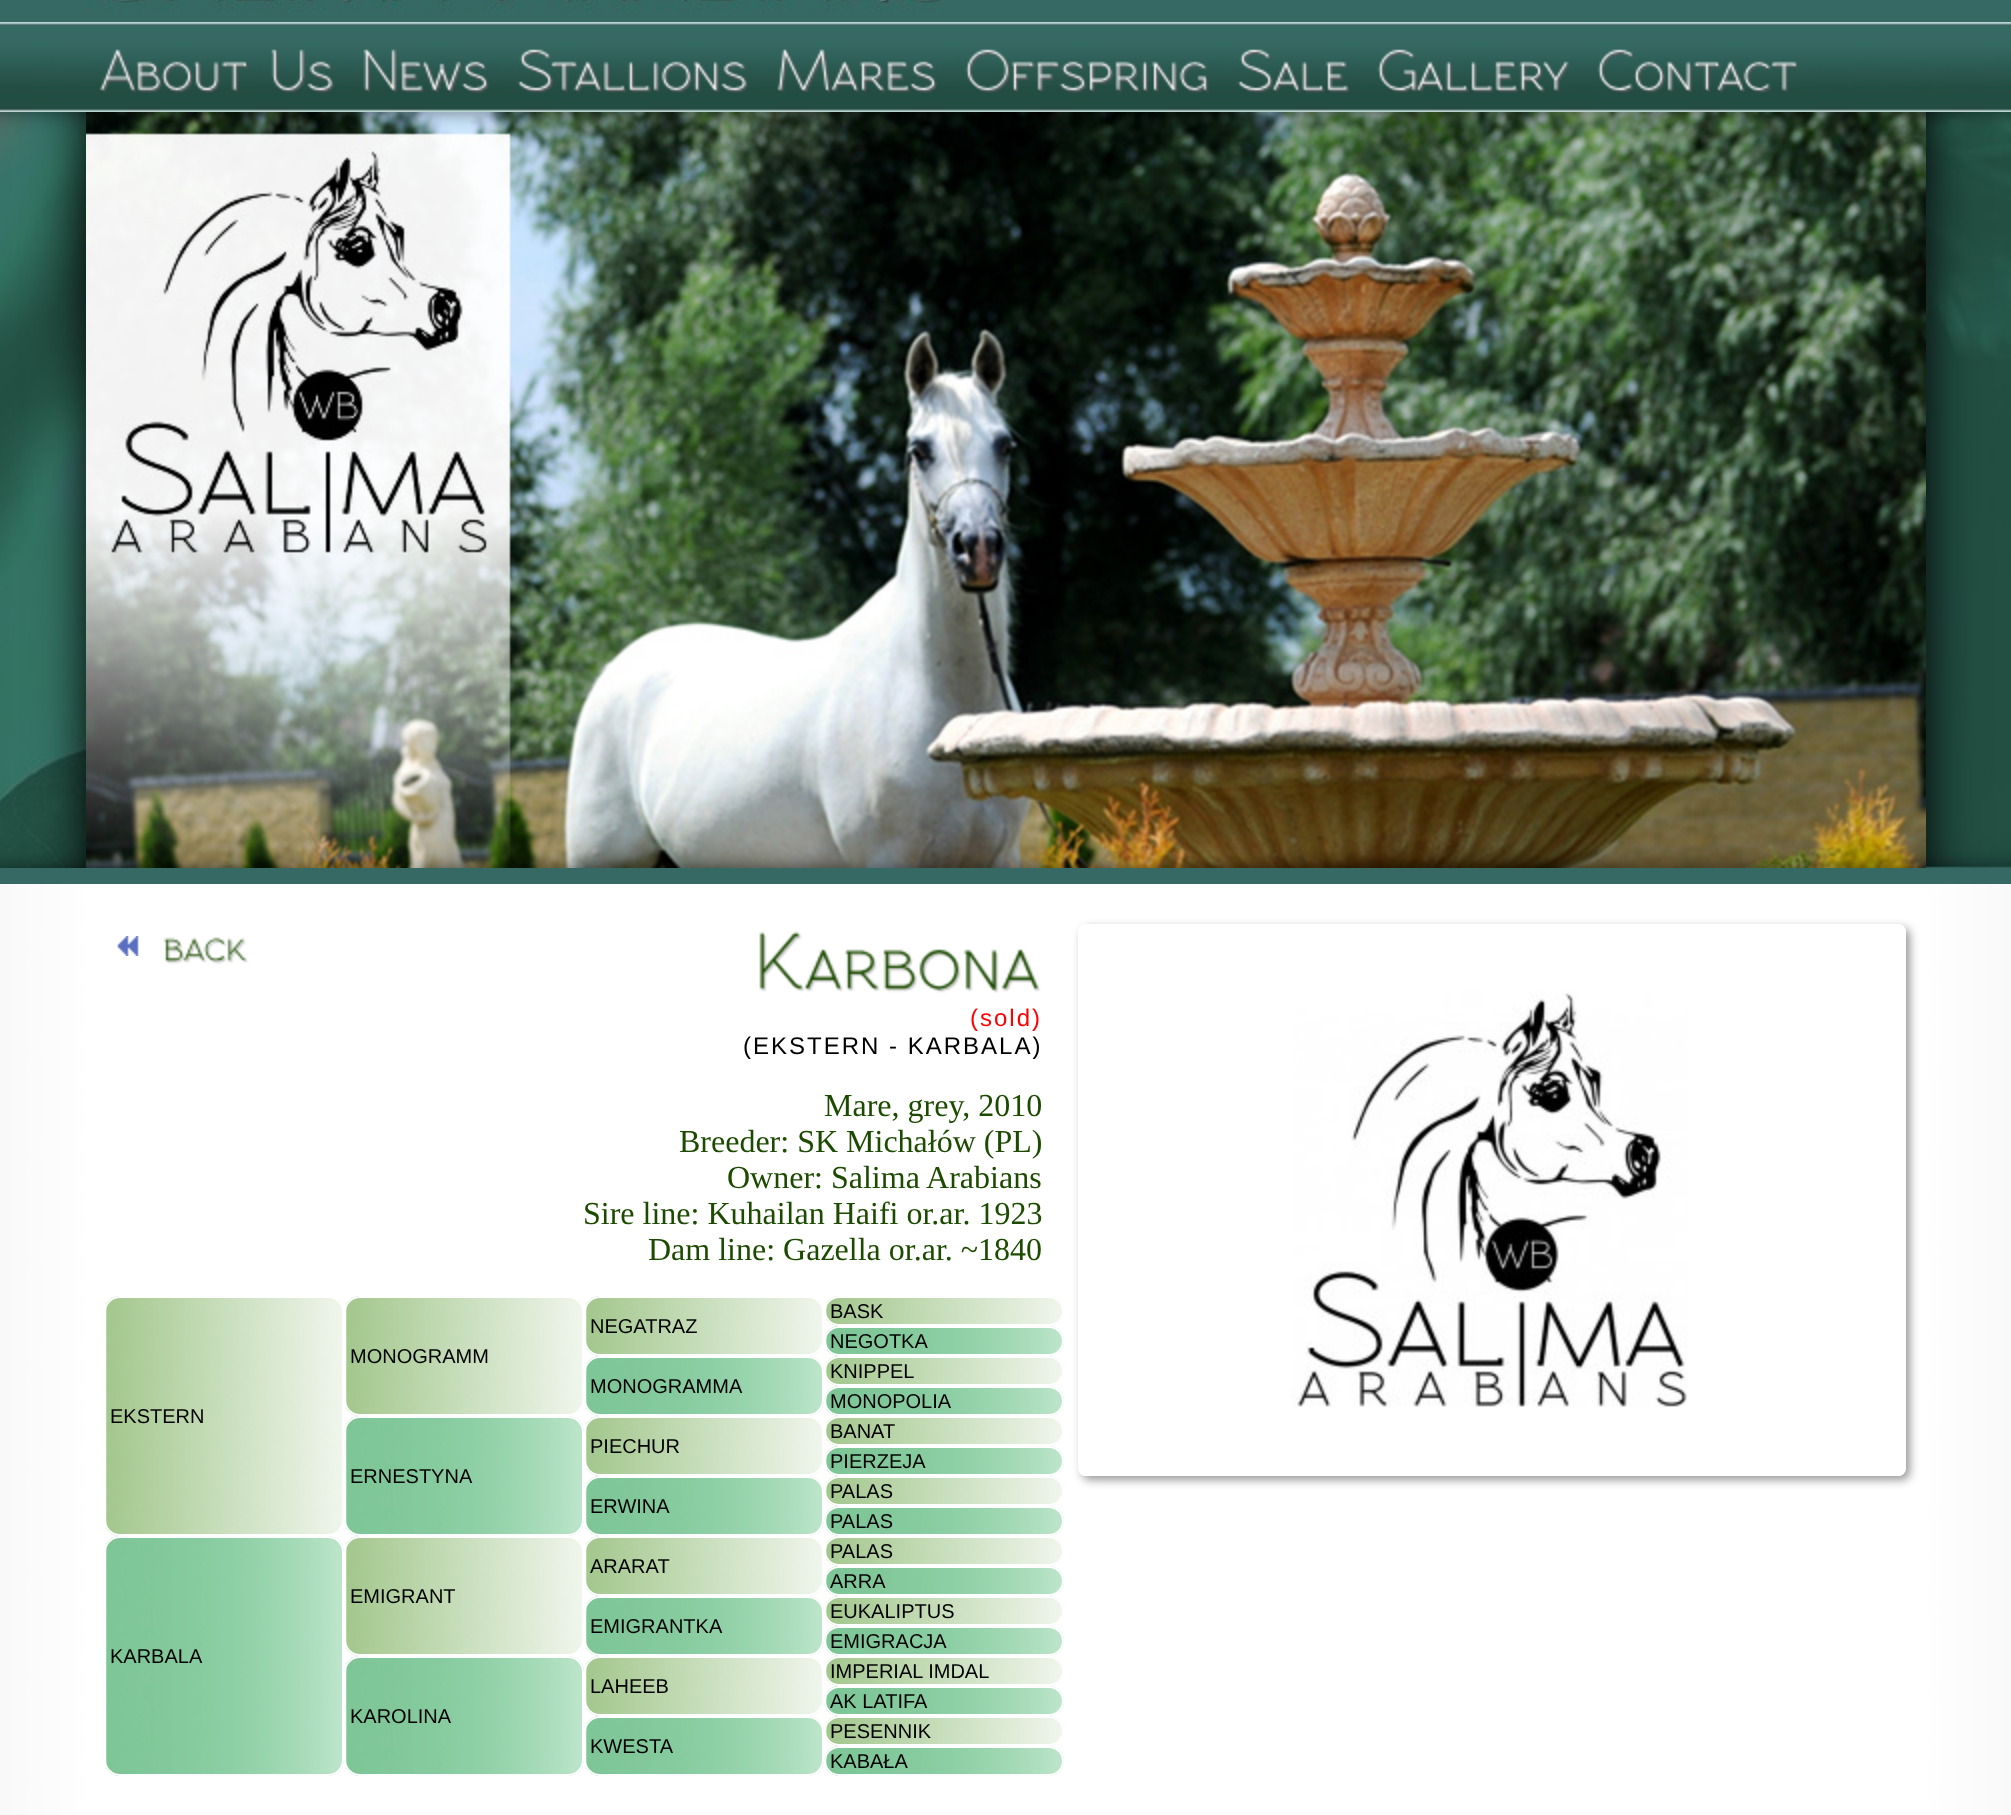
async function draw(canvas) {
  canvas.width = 2011;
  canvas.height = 1815;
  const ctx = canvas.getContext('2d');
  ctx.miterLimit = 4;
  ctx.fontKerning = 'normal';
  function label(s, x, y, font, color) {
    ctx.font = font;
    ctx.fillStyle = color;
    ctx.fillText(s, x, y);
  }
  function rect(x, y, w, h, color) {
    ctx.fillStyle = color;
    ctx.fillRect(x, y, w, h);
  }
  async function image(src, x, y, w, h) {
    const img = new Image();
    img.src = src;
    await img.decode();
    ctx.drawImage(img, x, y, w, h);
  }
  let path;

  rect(0, 0, 2011, 1815, '#366964');
  await image('assets/img1.png', 86, 0, 861, 12);
  await image('assets/img2.png', 0, 22, 2011, 90);
  await image('assets/img3.png', 99, 49, 150, 44);
  await image('assets/img4.png', 271, 49, 64, 44);
  await image('assets/img5.png', 363, 49, 126, 44);
  await image('assets/img6.png', 517, 49, 232, 44);
  await image('assets/img7.png', 777, 49, 160, 44);
  await image('assets/img8.png', 965, 49, 244, 44);
  await image('assets/img9.png', 1237, 49, 113, 44);
  await image('assets/img10.png', 1377, 49, 193, 44);
  await image('assets/img11.png', 1597, 49, 202, 44);
  await image('assets/img12.png', 0, 112, 86, 756);
  await image('assets/img13.png', 86, 112, 1840, 756);
  await image('assets/img14.png', 1926, 112, 85, 756);
  rect(86, 884, 1840, 931, '#fff');
  await image('assets/img15.png', 0, 884, 86, 931);
  await image('assets/img16.png', 117, 936, 22, 20);
  await image('assets/img17.png', 163, 937, 86, 28);
  await image('assets/img18.png', 759, 931, 282, 62);
  ctx.letterSpacing = '2px';
  label('(sold)', 970, 1026, '24px Liberation Sans', '#f00');
  label('(EKSTERN - KARBALA)', 743, 1054, '24px Liberation Sans', '#000');
  ctx.letterSpacing = '0px';
  label('Mare, grey, 2010', 824, 1116, '32px Liberation Serif', '#1c4b00');
  label('Breeder: SK Michałów (PL)', 679, 1152, '32px Liberation Serif', '#1c4b00');
  label('Owner: Salima Arabians', 727, 1188, '32px Liberation Serif', '#1c4b00');
  label('Sire line: Kuhailan Haifi or.ar. 1923', 583, 1224, '32px Liberation Serif', '#1c4b00');
  label('Dam line: Gazella or.ar. ~1840', 648, 1260, '32px Liberation Serif', '#1c4b00');
  await image('assets/img19.png', 825, 1296, 239, 30);
  ctx.beginPath();
  ctx.roundRect(825, 1297, 238, 28, 14);
  ctx.strokeStyle = '#fff';
  ctx.lineWidth = 2;
  ctx.stroke();
  label('BASK', 830, 1318, '20px Liberation Sans', '#000');
  await image('assets/img20.png', 585, 1296, 239, 60);
  ctx.beginPath();
  ctx.roundRect(585, 1297, 238, 58, 15);
  ctx.stroke();
  label('NEGATRAZ', 590, 1333, '20px Liberation Sans', '#000');
  await image('assets/img21.png', 345, 1296, 239, 120);
  ctx.beginPath();
  ctx.roundRect(345, 1297, 238, 118, 15);
  ctx.stroke();
  label('MONOGRAMM', 350, 1363, '20px Liberation Sans', '#000');
  await image('assets/img22.png', 105, 1296, 239, 240);
  ctx.beginPath();
  ctx.roundRect(105, 1297, 238, 238, 15);
  ctx.stroke();
  label('EKSTERN', 110, 1423, '20px Liberation Sans', '#000');
  await image('assets/img23.png', 825, 1326, 239, 30);
  ctx.beginPath();
  ctx.roundRect(825, 1327, 238, 28, 14);
  ctx.stroke();
  label('NEGOTKA', 830, 1348, '20px Liberation Sans', '#000');
  await image('assets/img19.png', 825, 1356, 239, 30);
  ctx.beginPath();
  ctx.roundRect(825, 1357, 238, 28, 14);
  ctx.stroke();
  label('KNIPPEL', 830, 1378, '20px Liberation Sans', '#000');
  await image('assets/img24.png', 585, 1356, 239, 60);
  ctx.beginPath();
  ctx.roundRect(585, 1357, 238, 58, 15);
  ctx.stroke();
  label('MONOGRAMMA', 590, 1393, '20px Liberation Sans', '#000');
  await image('assets/img25.png', 825, 1386, 239, 30);
  ctx.beginPath();
  ctx.roundRect(825, 1387, 238, 28, 14);
  ctx.stroke();
  label('MONOPOLIA', 830, 1408, '20px Liberation Sans', '#000');
  await image('assets/img19.png', 825, 1416, 239, 30);
  ctx.beginPath();
  ctx.roundRect(825, 1417, 238, 28, 14);
  ctx.stroke();
  label('BANAT', 830, 1438, '20px Liberation Sans', '#000');
  await image('assets/img20.png', 585, 1416, 239, 60);
  ctx.beginPath();
  ctx.roundRect(585, 1417, 238, 58, 15);
  ctx.stroke();
  label('PIECHUR', 590, 1453, '20px Liberation Sans', '#000');
  await image('assets/img26.png', 345, 1416, 239, 120);
  ctx.beginPath();
  ctx.roundRect(345, 1417, 238, 118, 15);
  ctx.stroke();
  label('ERNESTYNA', 350, 1483, '20px Liberation Sans', '#000');
  await image('assets/img23.png', 825, 1446, 239, 30);
  ctx.beginPath();
  ctx.roundRect(825, 1447, 238, 28, 14);
  ctx.stroke();
  label('PIERZEJA', 830, 1468, '20px Liberation Sans', '#000');
  await image('assets/img19.png', 825, 1476, 239, 30);
  ctx.beginPath();
  ctx.roundRect(825, 1477, 238, 28, 14);
  ctx.stroke();
  label('PALAS', 830, 1498, '20px Liberation Sans', '#000');
  await image('assets/img27.png', 585, 1476, 239, 60);
  ctx.beginPath();
  ctx.roundRect(585, 1477, 238, 58, 15);
  ctx.stroke();
  label('ERWINA', 590, 1513, '20px Liberation Sans', '#000');
  await image('assets/img23.png', 825, 1506, 239, 30);
  ctx.beginPath();
  ctx.roundRect(825, 1507, 238, 28, 14);
  ctx.stroke();
  label('PALAS', 830, 1528, '20px Liberation Sans', '#000');
  await image('assets/img19.png', 825, 1536, 239, 30);
  ctx.beginPath();
  ctx.roundRect(825, 1537, 238, 28, 14);
  ctx.stroke();
  label('PALAS', 830, 1558, '20px Liberation Sans', '#000');
  await image('assets/img20.png', 585, 1536, 239, 60);
  ctx.beginPath();
  ctx.roundRect(585, 1537, 238, 58, 15);
  ctx.stroke();
  label('ARARAT', 590, 1573, '20px Liberation Sans', '#000');
  await image('assets/img28.png', 345, 1536, 239, 120);
  ctx.beginPath();
  ctx.roundRect(345, 1537, 238, 118, 15);
  ctx.stroke();
  label('EMIGRANT', 350, 1603, '20px Liberation Sans', '#000');
  await image('assets/img29.png', 105, 1536, 239, 240);
  ctx.beginPath();
  ctx.roundRect(105, 1537, 238, 238, 15);
  ctx.stroke();
  label('KARBALA', 110, 1663, '20px Liberation Sans', '#000');
  await image('assets/img23.png', 825, 1566, 239, 30);
  ctx.beginPath();
  ctx.roundRect(825, 1567, 238, 28, 14);
  ctx.stroke();
  label('ARRA', 830, 1588, '20px Liberation Sans', '#000');
  await image('assets/img19.png', 825, 1596, 239, 30);
  ctx.beginPath();
  ctx.roundRect(825, 1597, 238, 28, 14);
  ctx.stroke();
  label('EUKALIPTUS', 830, 1618, '20px Liberation Sans', '#000');
  await image('assets/img27.png', 585, 1596, 239, 60);
  ctx.beginPath();
  ctx.roundRect(585, 1597, 238, 58, 15);
  ctx.stroke();
  label('EMIGRANTKA', 590, 1633, '20px Liberation Sans', '#000');
  await image('assets/img23.png', 825, 1626, 239, 30);
  ctx.beginPath();
  ctx.roundRect(825, 1627, 238, 28, 14);
  ctx.stroke();
  label('EMIGRACJA', 830, 1648, '20px Liberation Sans', '#000');
  await image('assets/img30.png', 825, 1656, 239, 30);
  ctx.beginPath();
  ctx.roundRect(825, 1657, 238, 28, 14);
  ctx.stroke();
  label('IMPERIAL IMDAL', 830, 1678, '20px Liberation Sans', '#000');
  await image('assets/img31.png', 585, 1656, 239, 60);
  ctx.beginPath();
  ctx.roundRect(585, 1657, 238, 58, 15);
  ctx.stroke();
  label('LAHEEB', 590, 1693, '20px Liberation Sans', '#000');
  await image('assets/img32.png', 345, 1656, 239, 120);
  ctx.beginPath();
  ctx.roundRect(345, 1657, 238, 118, 15);
  ctx.stroke();
  label('KAROLINA', 350, 1723, '20px Liberation Sans', '#000');
  await image('assets/img23.png', 825, 1686, 239, 30);
  ctx.beginPath();
  ctx.roundRect(825, 1687, 238, 28, 14);
  ctx.stroke();
  label('AK LATIFA', 830, 1708, '20px Liberation Sans', '#000');
  await image('assets/img19.png', 825, 1716, 239, 30);
  ctx.beginPath();
  ctx.roundRect(825, 1717, 238, 28, 14);
  ctx.stroke();
  label('PESENNIK', 830, 1738, '20px Liberation Sans', '#000');
  await image('assets/img27.png', 585, 1716, 239, 60);
  ctx.beginPath();
  ctx.roundRect(585, 1717, 238, 58, 15);
  ctx.stroke();
  label('KWESTA', 590, 1753, '20px Liberation Sans', '#000');
  await image('assets/img23.png', 825, 1746, 239, 30);
  ctx.beginPath();
  ctx.roundRect(825, 1747, 238, 28, 14);
  ctx.stroke();
  label('KABAŁA', 830, 1768, '20px Liberation Sans', '#000');
  ctx.save();
  path = new Path2D('M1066 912H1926V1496H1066ZM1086 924H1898C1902.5 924 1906 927.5 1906 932V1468C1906 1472.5 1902.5 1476 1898 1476H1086C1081.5 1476 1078 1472.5 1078 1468V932C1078 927.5 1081.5 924 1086 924Z');
  ctx.clip(path, 'evenodd');
  ctx.fillStyle = '#999';
  ctx.filter = 'blur(5px)';
  ctx.beginPath();
  ctx.roundRect(1082, 928, 828, 552, 8);
  ctx.fill();
  ctx.filter = 'none';
  ctx.restore();
  ctx.beginPath();
  ctx.roundRect(1079, 925, 826, 550, 7);
  ctx.stroke();
  await image('assets/img33.png', 1292, 991, 396, 416);
  await image('assets/img34.png', 1926, 884, 85, 931);
}

draw(document.querySelector('canvas'));
